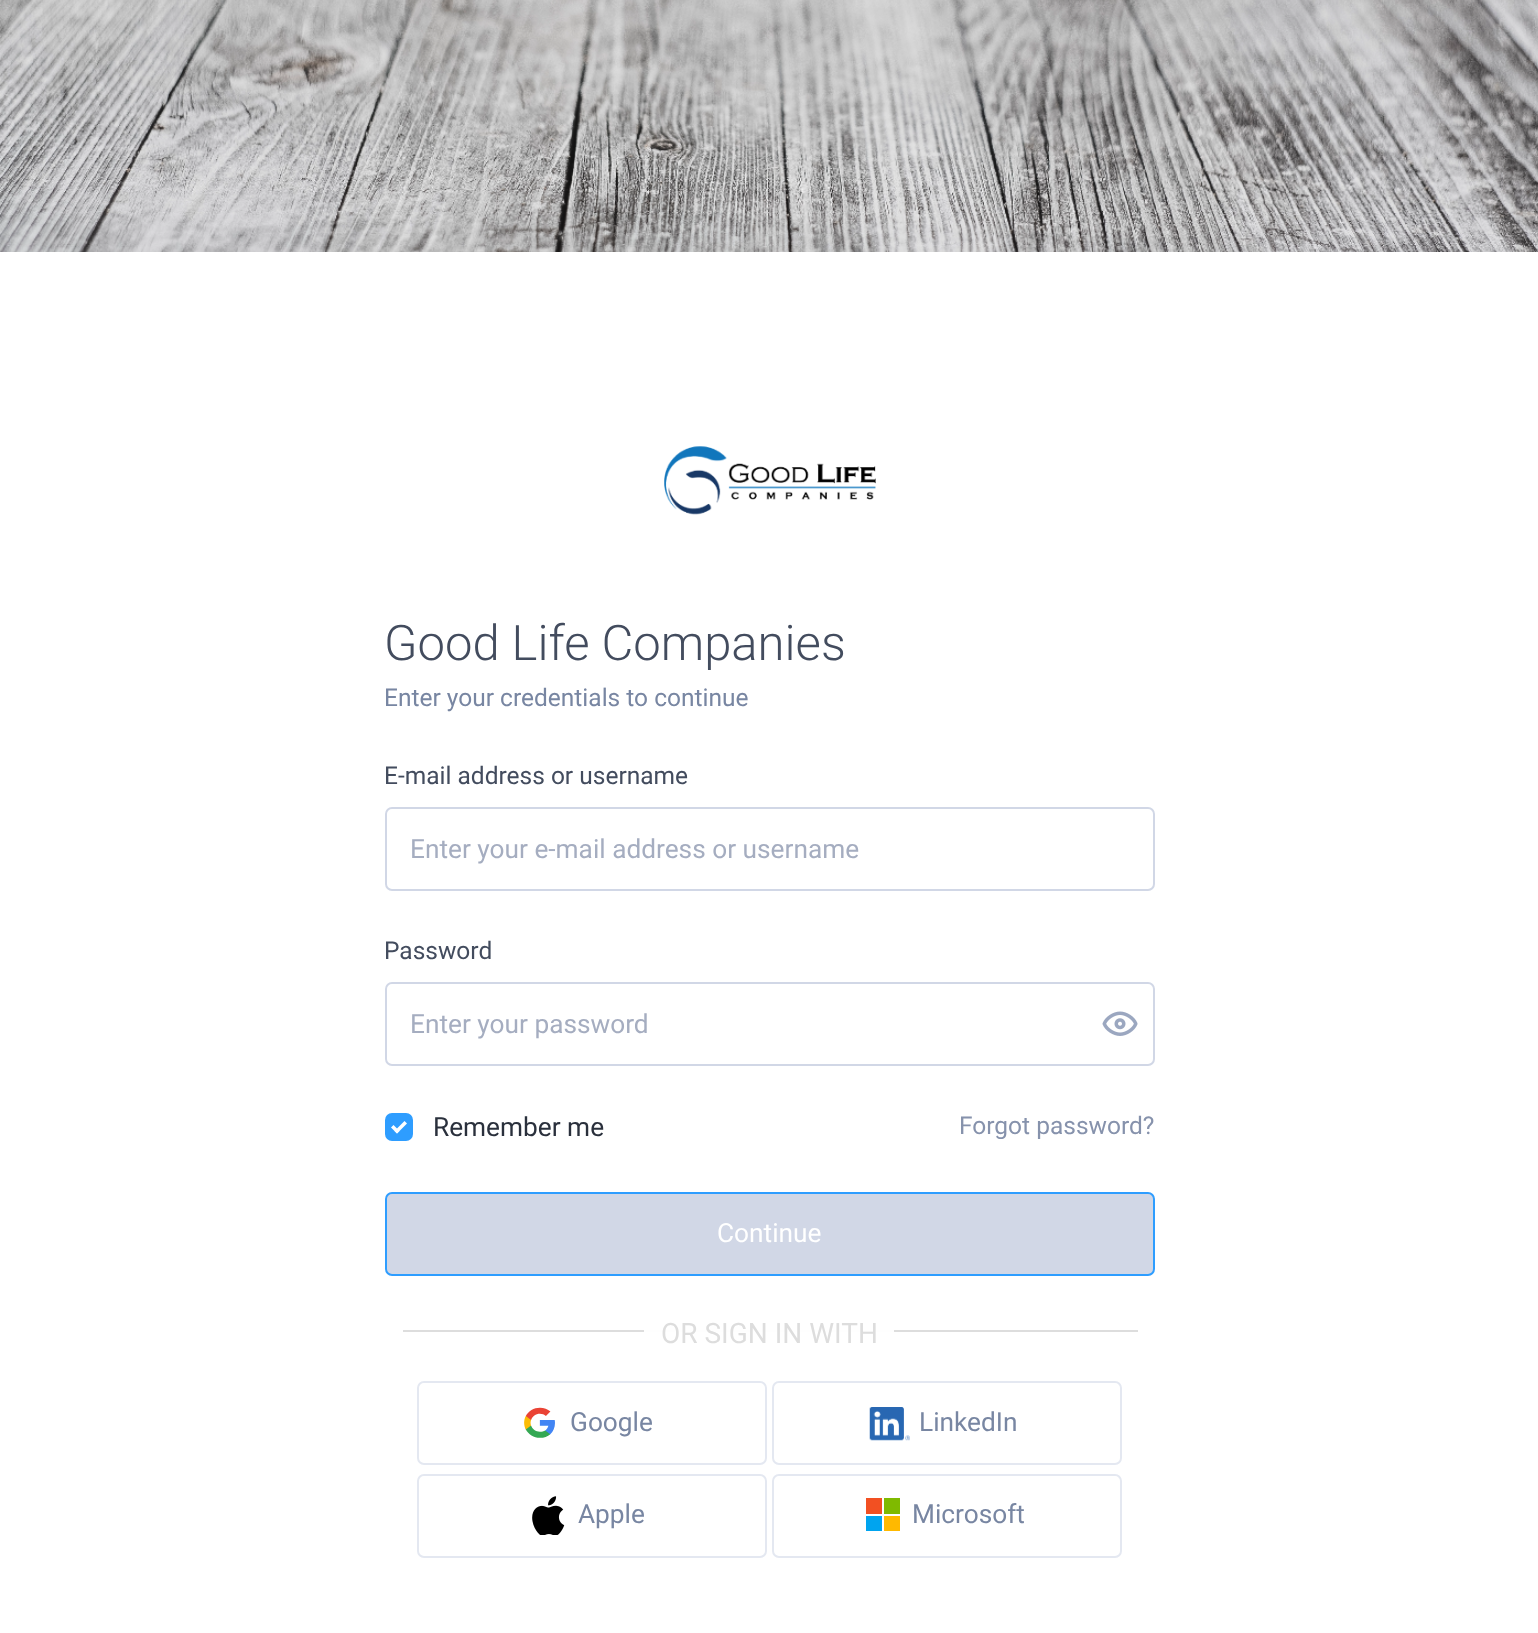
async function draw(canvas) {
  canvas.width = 1538;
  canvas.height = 1633;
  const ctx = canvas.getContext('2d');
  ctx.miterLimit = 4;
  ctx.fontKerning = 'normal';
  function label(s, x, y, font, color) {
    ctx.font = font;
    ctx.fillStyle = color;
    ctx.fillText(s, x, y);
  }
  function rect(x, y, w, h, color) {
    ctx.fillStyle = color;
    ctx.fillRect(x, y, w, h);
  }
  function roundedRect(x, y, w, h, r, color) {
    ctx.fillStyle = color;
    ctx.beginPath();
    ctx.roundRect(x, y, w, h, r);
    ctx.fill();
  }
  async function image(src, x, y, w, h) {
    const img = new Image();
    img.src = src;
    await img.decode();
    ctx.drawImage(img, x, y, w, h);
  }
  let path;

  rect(0, 0, 1538, 1633, '#fff');
  await image('assets/img1.png', 0, 0, 1538, 252);
  await image('assets/img2.png', 664, 446, 212, 69);
  label('Good Life Companies', 384, 660, '300 49px Roboto', '#434c5e');
  label('Enter your credentials to continue', 384, 706, '24.5px Roboto', '#7886a2');
  label('E-mail address or username', 384, 784, '24.5px Roboto', '#434c5e');
  ctx.beginPath();
  ctx.roundRect(386, 808, 768, 82, 6);
  ctx.strokeStyle = '#d1d7e6';
  ctx.lineWidth = 2;
  ctx.stroke();
  label('Enter your e-mail address or username', 410, 858, '26.25px Roboto', '#a5adc0');
  label('Password', 384, 959, '24.5px Roboto', '#434c5e');
  ctx.beginPath();
  ctx.roundRect(386, 983, 768, 82, 6);
  ctx.stroke();
  label('Enter your password', 410, 1033, '26.25px Roboto', '#a5adc0');
  await image('assets/img3.png', 1102, 1011, 36, 25);
  roundedRect(385, 1113, 28, 28, 7, '#2e9dff');
  label('Remember me', 433, 1136, '26.25px Roboto', '#2a303c');
  ctx.fillStyle = '#fff';
  path = new Path2D('M404.5 1121L407 1123.5L397 1133.5L394.5 1131Z');
  ctx.fill(path);
  path = new Path2D('M393.5 1125L399.5 1131L397 1133.5L391 1127.5Z');
  ctx.fill(path);
  label('Forgot password?', 959, 1134, '24.5px Roboto', '#8692ac');
  ctx.fillStyle = '#d1d7e6';
  ctx.beginPath();
  ctx.roundRect(386, 1193, 768, 82, 6);
  ctx.fill();
  ctx.strokeStyle = '#2e9dff';
  ctx.stroke();
  label('Continue', 717, 1242, '26.25px Roboto', '#fff');
  rect(403, 1330, 735, 2, '#ddd');
  rect(644, 1330, 250, 2, '#fefefe');
  label('OR SIGN IN WITH', 661, 1343, '28px Roboto', '#ddd');
  ctx.beginPath();
  ctx.roundRect(418, 1382, 348, 82, 6);
  ctx.strokeStyle = '#e4e8f1';
  ctx.stroke();
  await image('assets/img4.png', 524, 1407, 31, 31);
  label('Google', 570, 1431, '26.25px Roboto', '#7886a2');
  ctx.beginPath();
  ctx.roundRect(773, 1382, 348, 82, 6);
  ctx.stroke();
  await image('assets/img5.png', 869, 1407, 41, 34);
  label('LinkedIn', 919, 1431, '26.25px Roboto', '#7886a2');
  ctx.beginPath();
  ctx.roundRect(418, 1475, 348, 82, 6);
  ctx.stroke();
  await image('assets/img6.png', 532, 1496, 33, 39);
  label('Apple', 578, 1523, '26.25px Roboto', '#7886a2');
  ctx.beginPath();
  ctx.roundRect(773, 1475, 348, 82, 6);
  ctx.stroke();
  rect(866, 1498, 16, 16, '#f25022');
  rect(866, 1516, 16, 15, '#00a4ef');
  rect(884, 1498, 16, 16, '#7fba00');
  rect(884, 1516, 16, 15, '#ffb900');
  label('Microsoft', 912, 1523, '26.25px Roboto', '#7886a2');
}

draw(document.querySelector('canvas'));
